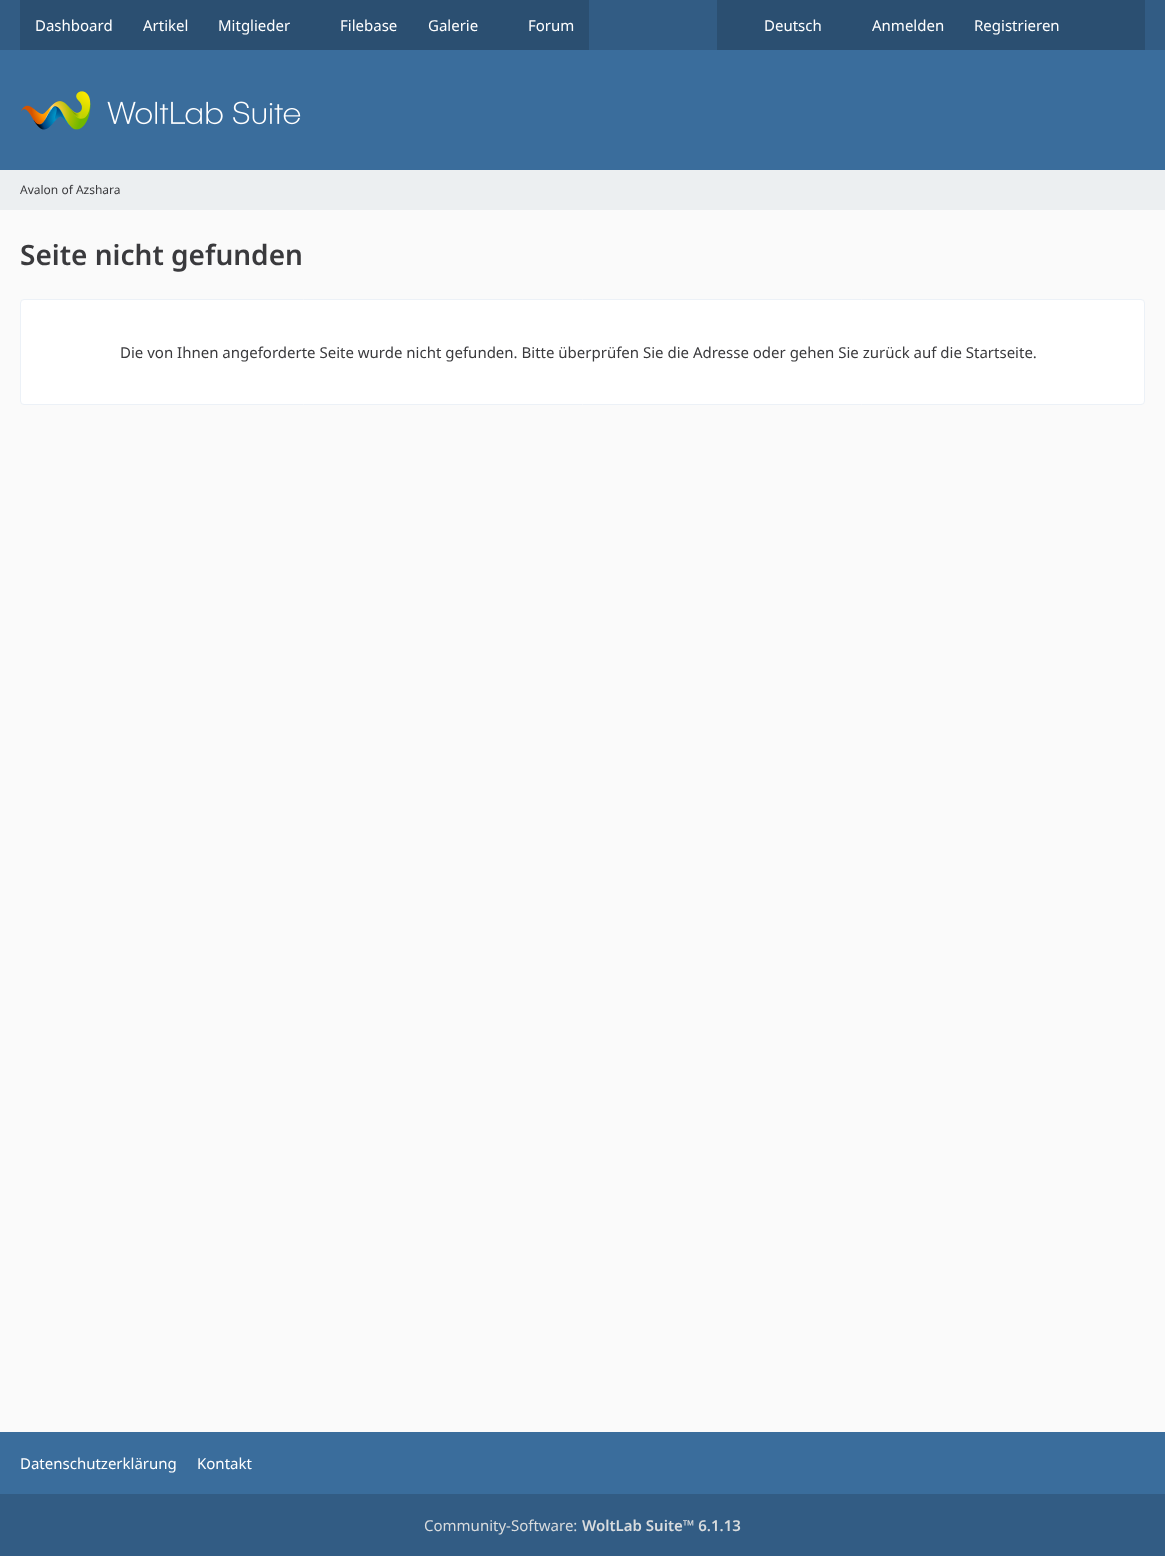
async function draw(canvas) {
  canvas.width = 1165;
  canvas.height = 1556;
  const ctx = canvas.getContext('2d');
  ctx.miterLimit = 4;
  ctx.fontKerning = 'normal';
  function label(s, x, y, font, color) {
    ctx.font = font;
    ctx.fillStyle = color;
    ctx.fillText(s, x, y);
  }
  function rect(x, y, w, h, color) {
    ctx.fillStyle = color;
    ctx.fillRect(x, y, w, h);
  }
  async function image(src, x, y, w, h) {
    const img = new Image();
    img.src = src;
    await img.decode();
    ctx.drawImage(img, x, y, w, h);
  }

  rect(0, 0, 1165, 1556, '#fafafa');
  rect(0, 50, 1165, 120, '#3a6d9c');
  rect(0, 0, 1165, 50, '#325c84');
  rect(20, 0, 569, 50, '#2b4f71');
  label('Dashboard', 35, 31, '15px Noto Sans', '#fff');
  label('Artikel', 143, 31, '15px Noto Sans', '#fff');
  label('Mitglieder', 218, 31, '15px Noto Sans', '#fff');
  label('Filebase', 340, 31, '15px Noto Sans', '#fff');
  label('Galerie', 428, 31, '15px Noto Sans', '#fff');
  label('Forum', 528, 31, '15px Noto Sans', '#fff');
  rect(717, 0, 428, 50, '#2b4f71');
  label('Deutsch', 764, 31, '15px Noto Sans', '#fff');
  label('Anmelden', 872, 31, '15px Noto Sans', '#fff');
  label('Registrieren', 974, 31, '15px Noto Sans', '#fff');
  await image('assets/img1.png', 21, 91, 280, 39);
  rect(0, 170, 1165, 40, '#eceff1');
  label('Avalon of Azshara', 20, 194, '12px Noto Sans', '#3a3a3d');
  label('Seite nicht gefunden', 20, 265, '600 28px Noto Sans', '#3a3a3d');
  ctx.fillStyle = '#fff';
  ctx.beginPath();
  ctx.roundRect(20.5, 299.5, 1124, 105, 3.5);
  ctx.fill();
  ctx.strokeStyle = '#ecf1f7';
  ctx.stroke();
  label('Die von Ihnen angeforderte Seite wurde nicht gefunden. Bitte überprüfen Sie die Adresse oder gehen Sie zurück auf die Startseite.', 120, 358, '15px Noto Sans', '#3a3a3d');
  rect(0, 1432, 1165, 62, '#3a6d9c');
  label('Datenschutzerklärung', 20, 1469, '15px Noto Sans', '#fff');
  label('Kontakt', 197, 1469, '15px Noto Sans', '#fff');
  rect(0, 1494, 1165, 62, '#325c84');
  label('Community-Software:', 424, 1531, '15px Noto Sans', '#d9dcde');
  label('WoltLab Suite™ 6.1.13', 582, 1531, '600 15px Noto Sans', '#d9dcde');
}

draw(document.querySelector('canvas'));
